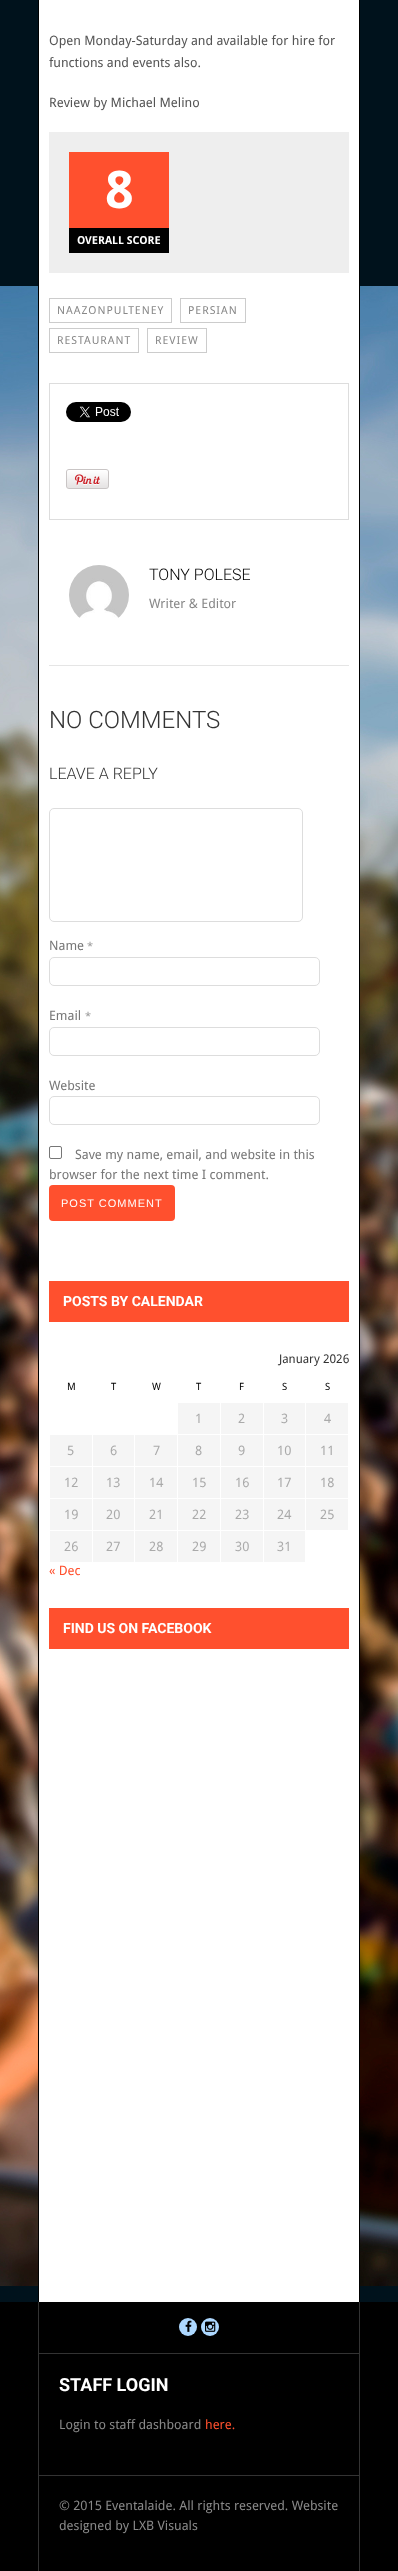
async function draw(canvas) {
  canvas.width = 398;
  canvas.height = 2571;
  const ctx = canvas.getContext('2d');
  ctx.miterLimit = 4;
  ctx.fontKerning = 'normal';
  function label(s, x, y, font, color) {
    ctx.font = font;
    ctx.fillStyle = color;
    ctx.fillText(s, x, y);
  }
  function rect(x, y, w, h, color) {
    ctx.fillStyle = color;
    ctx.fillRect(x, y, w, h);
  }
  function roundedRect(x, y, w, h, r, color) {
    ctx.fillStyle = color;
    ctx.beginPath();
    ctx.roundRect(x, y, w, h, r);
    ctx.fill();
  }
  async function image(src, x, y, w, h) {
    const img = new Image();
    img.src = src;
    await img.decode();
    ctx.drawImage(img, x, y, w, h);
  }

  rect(0, 0, 398, 2571, '#00121c');
  await image('assets/img1.png', 0, 286, 398, 2000);
  rect(39, 0, 320, 2302, '#fff');
  rect(359, 0, 1, 2302, '#000');
  rect(38, 0, 1, 2302, '#000');
  label('Open Monday-Saturday and available for hire for', 49, 45, '13px Droid Sans', '#555');
  label('functions and events also.', 49, 67, '13px Droid Sans', '#555');
  label('Review by Michael Melino', 49, 107, '13px Droid Sans', '#555');
  rect(49, 132, 300, 141, '#eee');
  rect(69, 152, 100, 76, '#ff502e');
  label('8', 105, 208, 'bold 52px Droid Sans', '#fff');
  rect(69, 228, 100, 25, '#000');
  label('OVERALL SCORE', 77, 244, 'bold 11px Droid Sans', '#fff');
  ctx.strokeStyle = '#ccc';
  ctx.strokeRect(49.5, 298.5, 122, 24);
  ctx.letterSpacing = '1px';
  label('NAAZONPULTENEY', 57, 314, '11px Droid Sans', '#888');
  ctx.strokeRect(180.5, 298.5, 65, 24);
  label('PERSIAN', 188, 314, '11px Droid Sans', '#888');
  ctx.strokeRect(49.5, 328.5, 89, 24);
  label('RESTAURANT', 57, 344, '11px Droid Sans', '#888');
  ctx.strokeRect(147.5, 328.5, 59, 24);
  label('REVIEW', 155, 344, '11px Droid Sans', '#888');
  ctx.strokeStyle = '#ddd';
  ctx.strokeRect(49.5, 383.5, 299, 136);
  await image('assets/img2.png', 66, 402, 65, 20);
  await image('assets/img3.png', 66, 469, 43, 20);
  rect(49, 665, 300, 1, '#e5e5e5');
  await image('assets/img4.png', 69, 565, 60, 53);
  ctx.letterSpacing = '0px';
  label('TONY POLESE', 149, 580, '300 16px Roboto', '#000');
  label('Writer & Editor', 149, 608, '13px Droid Sans', '#888');
  label('NO COMMENTS', 49, 728, '300 24px Roboto', '#333');
  label('LEAVE A REPLY', 49, 779, '300 16px Roboto', '#333');
  ctx.beginPath();
  ctx.roundRect(49.5, 808.5, 253, 113, 4.5);
  ctx.stroke();
  label('Name', 49, 950, '13px Droid Sans', '#777');
  label('*', 87, 950, '11px Droid Sans', '#999');
  ctx.beginPath();
  ctx.roundRect(49.5, 957.5, 270, 28, 4.5);
  ctx.stroke();
  label('Email', 49, 1020, '13px Droid Sans', '#777');
  label('*', 85, 1020, '11px Droid Sans', '#999');
  ctx.beginPath();
  ctx.roundRect(49.5, 1027.5, 270, 28, 4.5);
  ctx.stroke();
  label('Website', 49, 1090, '13px Droid Sans', '#777');
  ctx.beginPath();
  ctx.roundRect(49.5, 1096.5, 270, 28, 4.5);
  ctx.stroke();
  ctx.beginPath();
  ctx.roundRect(49.5, 1146.5, 12, 12, 1.5);
  ctx.strokeStyle = '#767676';
  ctx.stroke();
  label('Save my name, email, and website in this', 75, 1159, '13px Droid Sans', '#777');
  label('browser for the next time I comment.', 49, 1179, '13px Droid Sans', '#777');
  roundedRect(49, 1185, 126, 36, 4, '#ff502e');
  ctx.letterSpacing = '1px';
  label('POST COMMENT', 61, 1207, '11px Liberation Sans', '#fff');
  rect(49, 1281, 300, 41, '#ff502e');
  ctx.letterSpacing = '0px';
  label('POSTS BY CALENDAR', 63, 1306, 'bold 14px Roboto', '#fff');
  label('January 2026', 279, 1363, '12px Droid Sans', '#333');
  label('M', 67, 1390, '10px Droid Sans', '#000');
  label('T', 111, 1390, '10px Droid Sans', '#000');
  label('W', 152, 1390, '10px Droid Sans', '#000');
  label('T', 196, 1390, '10px Droid Sans', '#000');
  label('F', 239, 1390, '10px Droid Sans', '#000');
  label('S', 282, 1390, '10px Droid Sans', '#000');
  label('S', 325, 1390, '10px Droid Sans', '#000');
  rect(178, 1403, 42, 31, '#f5f5f5');
  label('1', 195, 1423, '13px Droid Sans', '#aaa');
  rect(221, 1403, 42, 31, '#f5f5f5');
  label('2', 238, 1423, '13px Droid Sans', '#aaa');
  rect(264, 1403, 41, 31, '#f5f5f5');
  label('3', 281, 1423, '13px Droid Sans', '#aaa');
  rect(306, 1403, 42, 31, '#f5f5f5');
  label('4', 324, 1423, '13px Droid Sans', '#aaa');
  rect(50, 1435, 42, 31, '#f5f5f5');
  label('5', 67, 1455, '13px Droid Sans', '#aaa');
  rect(93, 1435, 41, 31, '#f5f5f5');
  label('6', 110, 1455, '13px Droid Sans', '#aaa');
  rect(135, 1435, 42, 31, '#f5f5f5');
  label('7', 153, 1455, '13px Droid Sans', '#aaa');
  rect(178, 1435, 42, 31, '#f5f5f5');
  label('8', 195, 1455, '13px Droid Sans', '#aaa');
  rect(221, 1435, 42, 31, '#f5f5f5');
  label('9', 238, 1455, '13px Droid Sans', '#aaa');
  rect(264, 1435, 41, 31, '#f5f5f5');
  label('10', 277, 1455, '13px Droid Sans', '#aaa');
  rect(306, 1435, 42, 31, '#f5f5f5');
  label('11', 320, 1455, '13px Droid Sans', '#aaa');
  rect(50, 1467, 42, 31, '#f5f5f5');
  label('12', 64, 1487, '13px Droid Sans', '#aaa');
  rect(93, 1467, 41, 31, '#f5f5f5');
  label('13', 106, 1487, '13px Droid Sans', '#aaa');
  rect(135, 1467, 42, 31, '#f5f5f5');
  label('14', 149, 1487, '13px Droid Sans', '#aaa');
  rect(178, 1467, 42, 31, '#f5f5f5');
  label('15', 192, 1487, '13px Droid Sans', '#aaa');
  rect(221, 1467, 42, 31, '#f5f5f5');
  label('16', 235, 1487, '13px Droid Sans', '#aaa');
  rect(264, 1467, 41, 31, '#f5f5f5');
  label('17', 277, 1487, '13px Droid Sans', '#aaa');
  rect(306, 1467, 42, 31, '#f5f5f5');
  label('18', 320, 1487, '13px Droid Sans', '#aaa');
  rect(50, 1499, 42, 31, '#f5f5f5');
  label('19', 64, 1519, '13px Droid Sans', '#aaa');
  rect(93, 1499, 41, 31, '#f5f5f5');
  label('20', 106, 1519, '13px Droid Sans', '#aaa');
  rect(135, 1499, 42, 31, '#f5f5f5');
  label('21', 149, 1519, '13px Droid Sans', '#aaa');
  rect(178, 1499, 42, 31, '#f5f5f5');
  label('22', 192, 1519, '13px Droid Sans', '#aaa');
  rect(221, 1499, 42, 31, '#f5f5f5');
  label('23', 235, 1519, '13px Droid Sans', '#aaa');
  rect(264, 1499, 41, 31, '#f5f5f5');
  label('24', 277, 1519, '13px Droid Sans', '#aaa');
  rect(306, 1499, 42, 31, '#f5f5f5');
  label('25', 320, 1519, '13px Droid Sans', '#aaa');
  rect(50, 1531, 42, 31, '#f5f5f5');
  label('26', 64, 1551, '13px Droid Sans', '#aaa');
  rect(93, 1531, 41, 31, '#f5f5f5');
  label('27', 106, 1551, '13px Droid Sans', '#aaa');
  rect(135, 1531, 42, 31, '#f5f5f5');
  label('28', 149, 1551, '13px Droid Sans', '#aaa');
  rect(178, 1531, 42, 31, '#f5f5f5');
  label('29', 192, 1551, '13px Droid Sans', '#aaa');
  rect(221, 1531, 42, 31, '#f5f5f5');
  label('30', 235, 1551, '13px Droid Sans', '#aaa');
  rect(264, 1531, 41, 31, '#f5f5f5');
  label('31', 277, 1551, '13px Droid Sans', '#aaa');
  label('« Dec', 49, 1575, '13px Droid Sans', '#ff502e');
  rect(49, 1608, 300, 41, '#ff502e');
  label('FIND US ON FACEBOOK', 63, 1633, 'bold 14px Roboto', '#fff');
  rect(0, 2302, 398, 269, '#000');
  rect(359, 2302, 1, 269, '#333');
  rect(38, 2302, 1, 269, '#333');
  rect(39, 2353, 320, 1, '#333');
  ctx.fillStyle = '#add8ff';
  ctx.beginPath();
  ctx.arc(188, 2327, 9, 0, 2 * Math.PI);
  ctx.fill();
  await image('assets/img5.png', 185, 2320, 7, 12);
  ctx.beginPath();
  ctx.arc(210, 2327, 9, 0, 2 * Math.PI);
  ctx.fill();
  await image('assets/img6.png', 205, 2321, 11, 11);
  rect(39, 2475, 320, 1, '#333');
  label('STAFF LOGIN', 59, 2391, 'bold 18px Roboto', '#fff');
  label('Login to staff dashboard', 59, 2429, '13px Droid Sans', '#888');
  label('here.', 205, 2429, '13px Droid Sans', '#ff502e');
  label('© 2015 Eventalaide. All rights reserved. Website', 59, 2510, '13px Droid Sans', '#888');
  label('designed by LXB Visuals', 59, 2530, '13px Droid Sans', '#888');
}

draw(document.querySelector('canvas'));
